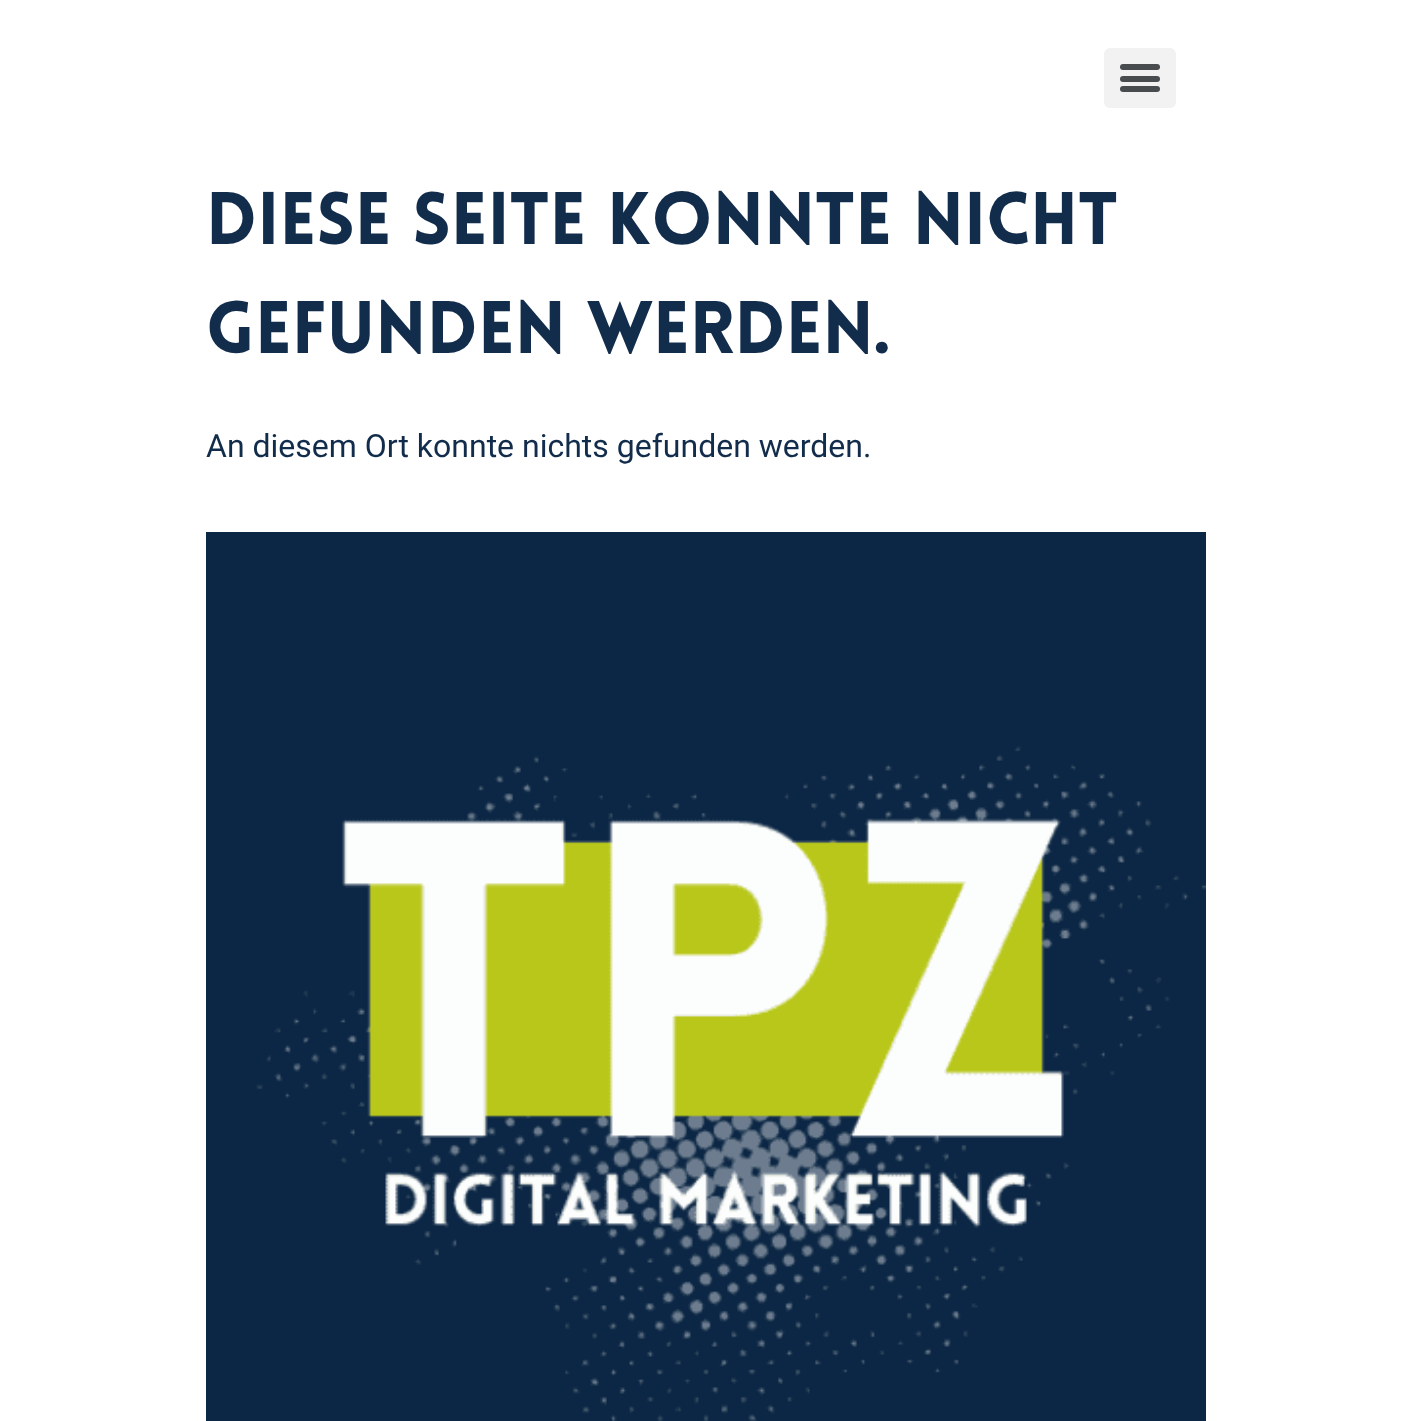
async function draw(canvas) {
  canvas.width = 1411;
  canvas.height = 1421;
  const ctx = canvas.getContext('2d');
  ctx.miterLimit = 4;
  ctx.fontKerning = 'normal';
  function label(s, x, y, font, color) {
    ctx.font = font;
    ctx.fillStyle = color;
    ctx.fillText(s, x, y);
  }
  function rect(x, y, w, h, color) {
    ctx.fillStyle = color;
    ctx.fillRect(x, y, w, h);
  }
  function roundedRect(x, y, w, h, r, color) {
    ctx.fillStyle = color;
    ctx.beginPath();
    ctx.roundRect(x, y, w, h, r);
    ctx.fill();
  }
  async function image(src, x, y, w, h) {
    const img = new Image();
    img.src = src;
    await img.decode();
    ctx.drawImage(img, x, y, w, h);
  }

  rect(0, 0, 1411, 1421, '#fff');
  roundedRect(1104, 48, 72, 60, 6, '#f2f2f2');
  roundedRect(1120, 76, 40, 6, 3, '#494c4f');
  roundedRect(1120, 64, 40, 6, 3, '#494c4f');
  roundedRect(1120, 86, 40, 6, 3, '#494c4f');
  label('Diese Seite konnte nicht', 206, 244, '900 72.9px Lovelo', '#122c4b');
  label('gefunden werden.', 206, 353, '900 72.9px Lovelo', '#122c4b');
  label('An diesem Ort konnte nichts gefunden werden.', 206, 457, '32px Roboto', '#122c4b');
  await image('assets/img1.png', 206, 532, 1000, 889);
}

draw(document.querySelector('canvas'));
